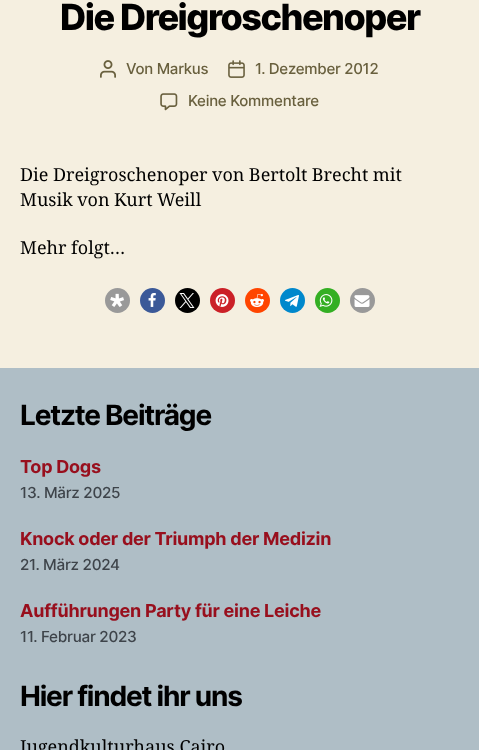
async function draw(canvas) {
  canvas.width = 479;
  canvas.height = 750;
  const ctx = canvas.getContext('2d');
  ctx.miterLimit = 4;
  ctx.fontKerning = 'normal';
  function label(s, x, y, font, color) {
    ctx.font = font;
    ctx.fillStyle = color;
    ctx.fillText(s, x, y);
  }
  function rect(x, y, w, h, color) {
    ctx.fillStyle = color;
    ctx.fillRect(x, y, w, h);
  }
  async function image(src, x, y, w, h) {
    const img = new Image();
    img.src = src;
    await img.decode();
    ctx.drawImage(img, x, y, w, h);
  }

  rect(0, 0, 479, 750, '#f5efe0');
  ctx.letterSpacing = '-1.5px';
  label('Die Dreigroschenoper', 60, 30, '800 36px Inter', '#000');
  await image('assets/img1.png', 100, 60, 16, 18);
  ctx.letterSpacing = '-0.25px';
  label('Von Markus', 126, 74, '500 15px Inter', '#69603e');
  await image('assets/img2.png', 228, 60, 17, 18);
  label('1. Dezember 2012', 255, 74, '500 15px Inter', '#69603e');
  await image('assets/img3.png', 160, 93, 18, 18);
  label('Keine Kommentare', 188, 106, '500 15px Inter', '#69603e');
  ctx.letterSpacing = '0px';
  ctx.wordSpacing = '-0.25px';
  label('Die Dreigroschenoper von Bertolt Brecht mit', 20, 181, '18px Noto Serif', '#000');
  label('Musik von Kurt Weill', 20, 206, '18px Noto Serif', '#000');
  ctx.wordSpacing = '0px';
  label('Mehr folgt…', 20, 254, '18px Noto Serif', '#000');
  ctx.fillStyle = '#999';
  ctx.beginPath();
  ctx.arc(117.5, 300.5, 12.5, 0, 2 * Math.PI);
  ctx.fill();
  await image('assets/img4.png', 110, 293, 14, 14);
  ctx.fillStyle = '#3b5998';
  ctx.beginPath();
  ctx.arc(152.5, 300.5, 12.5, 0, 2 * Math.PI);
  ctx.fill();
  await image('assets/img5.png', 148, 293, 8, 14);
  ctx.fillStyle = '#000';
  ctx.beginPath();
  ctx.arc(187.5, 300.5, 12.5, 0, 2 * Math.PI);
  ctx.fill();
  await image('assets/img6.png', 179, 293, 16, 15);
  ctx.fillStyle = '#cb2027';
  ctx.beginPath();
  ctx.arc(222.5, 300.5, 12.5, 0, 2 * Math.PI);
  ctx.fill();
  await image('assets/img7.png', 215, 294, 14, 13);
  ctx.fillStyle = '#ff4500';
  ctx.beginPath();
  ctx.arc(257.5, 300.5, 12.5, 0, 2 * Math.PI);
  ctx.fill();
  await image('assets/img8.png', 250, 294, 14, 14);
  ctx.fillStyle = '#08c';
  ctx.beginPath();
  ctx.arc(292.5, 300.5, 12.5, 0, 2 * Math.PI);
  ctx.fill();
  await image('assets/img9.png', 285, 295, 14, 12);
  ctx.fillStyle = '#34af23';
  ctx.beginPath();
  ctx.arc(327.5, 300.5, 12.5, 0, 2 * Math.PI);
  ctx.fill();
  await image('assets/img10.png', 319, 294, 14, 13);
  ctx.fillStyle = '#999';
  ctx.beginPath();
  ctx.arc(362.5, 300.5, 12.5, 0, 2 * Math.PI);
  ctx.fill();
  await image('assets/img11.png', 354, 295, 16, 12);
  rect(0, 368, 479, 382, '#afbec6');
  ctx.letterSpacing = '-1.2px';
  label('Letzte Beiträge', 20, 425, 'bold 28px Inter', '#000');
  ctx.letterSpacing = '-0.25px';
  label('Top Dogs', 20, 473, 'bold 18px Inter', '#980f1d');
  label('13. März 2025', 20, 498, '500 15.25px Inter', '#3e444a');
  label('Knock oder der Triumph der Medizin', 20, 545, 'bold 18px Inter', '#980f1d');
  label('21. März 2024', 20, 570, '500 15.25px Inter', '#3e444a');
  label('Aufführungen Party für eine Leiche', 20, 617, 'bold 18px Inter', '#980f1d');
  label('11. Februar 2023', 20, 642, '500 15.25px Inter', '#3e444a');
  ctx.letterSpacing = '-1.2px';
  label('Hier findet ihr uns', 20, 706, 'bold 28px Inter', '#000');
  ctx.letterSpacing = '0px';
  label('Jugendkulturhaus Cairo', 20, 753, '18px Noto Serif', '#000');
}

draw(document.querySelector('canvas'));
